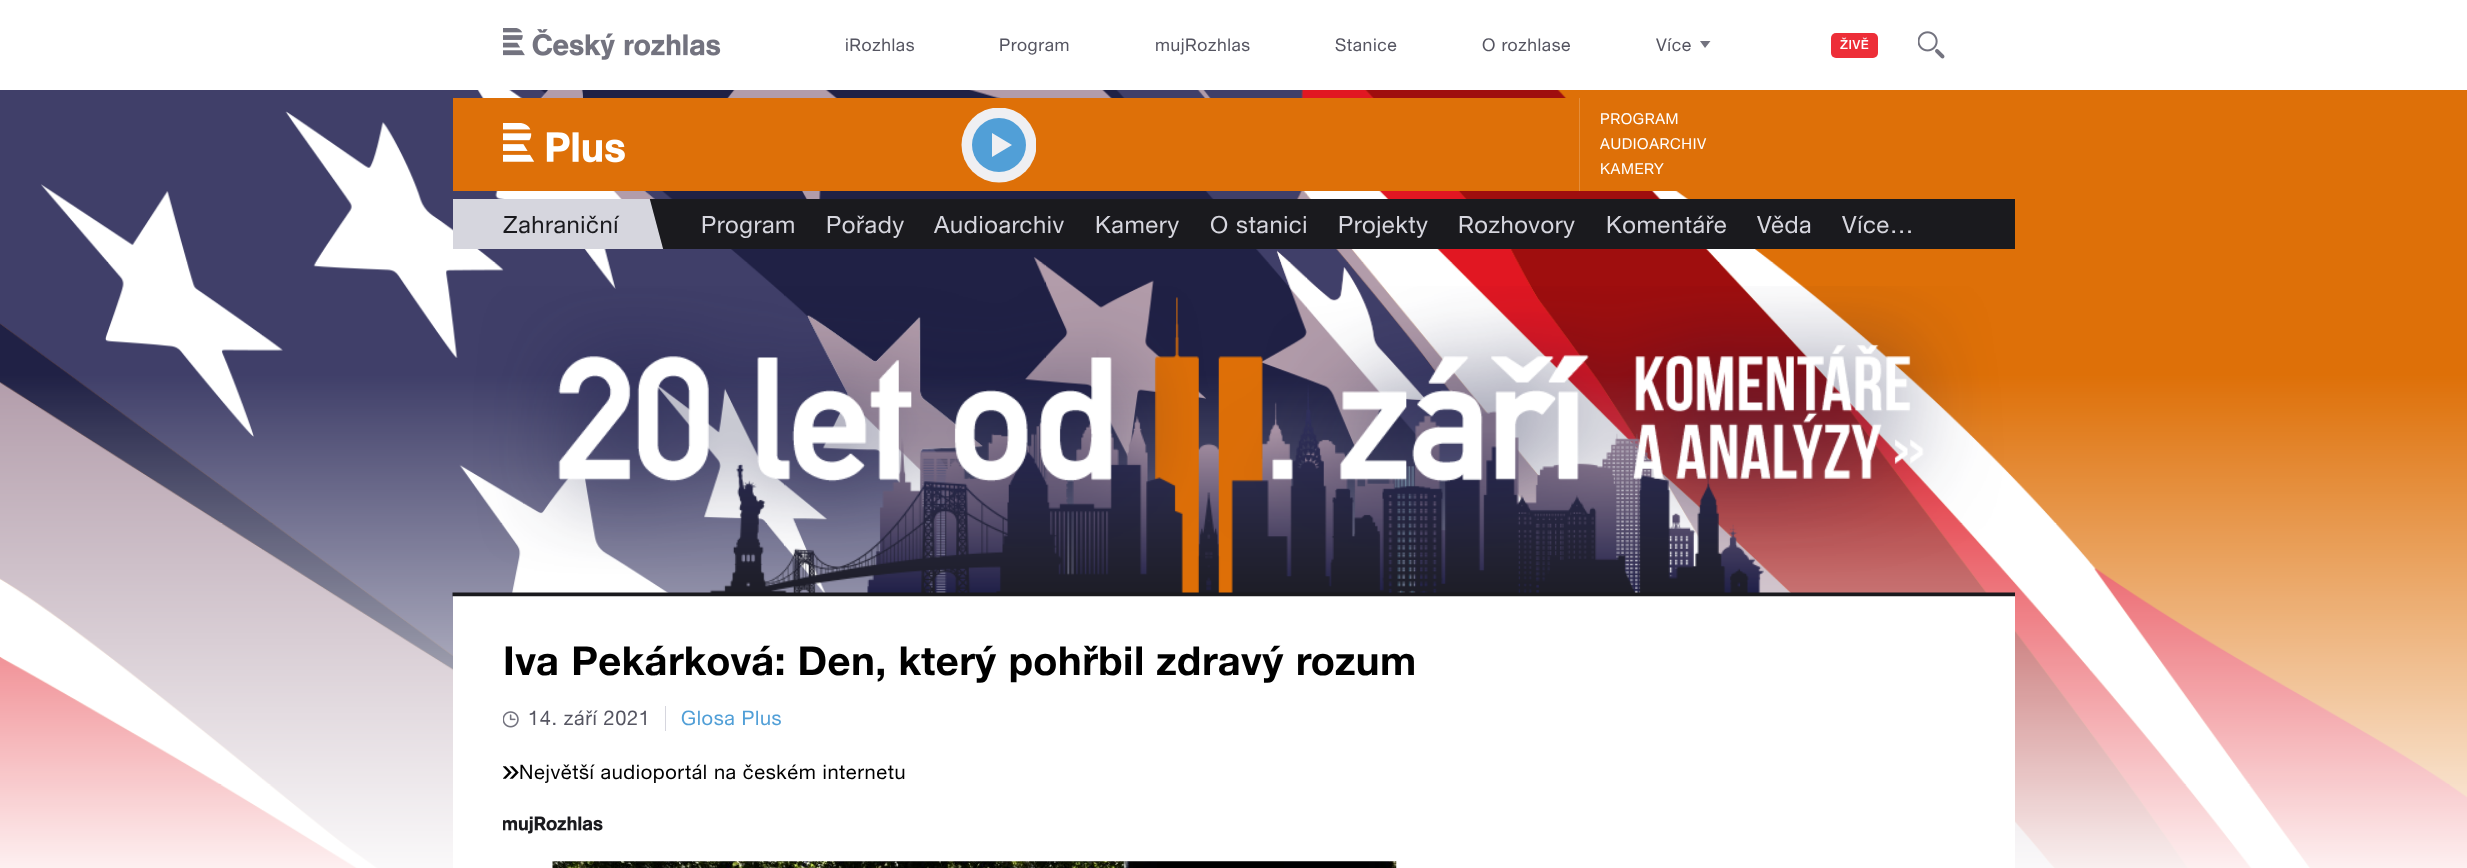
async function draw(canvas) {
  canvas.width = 2467;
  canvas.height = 868;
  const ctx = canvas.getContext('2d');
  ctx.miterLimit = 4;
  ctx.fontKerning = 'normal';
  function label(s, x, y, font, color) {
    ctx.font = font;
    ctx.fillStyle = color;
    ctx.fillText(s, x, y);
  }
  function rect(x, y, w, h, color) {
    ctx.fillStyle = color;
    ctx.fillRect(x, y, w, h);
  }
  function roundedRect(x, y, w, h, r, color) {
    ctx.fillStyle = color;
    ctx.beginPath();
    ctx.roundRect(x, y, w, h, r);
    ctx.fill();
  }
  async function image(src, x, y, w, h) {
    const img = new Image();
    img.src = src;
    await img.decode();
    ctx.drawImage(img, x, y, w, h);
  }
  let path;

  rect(0, 0, 2467, 868, '#fff');
  await image('assets/img1.png', 503, 28, 218, 32);
  ctx.letterSpacing = '0.6px';
  label('iRozhlas', 845, 51, '17.5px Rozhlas', '#555561');
  label('Program', 999, 51, '17.5px Rozhlas', '#555561');
  label('mujRozhlas', 1155, 51, '17.5px Rozhlas', '#555561');
  label('Stanice', 1335, 51, '17.5px Rozhlas', '#555561');
  label('O rozhlase', 1482, 51, '17.5px Rozhlas', '#555561');
  label('Více', 1656, 51, '17.5px Rozhlas', '#555561');
  ctx.fillStyle = '#73737f';
  path = new Path2D('M1700 41H1710.5L1705 48Z');
  ctx.fill(path);
  roundedRect(1831, 33, 47, 25, 5, '#ed2e38');
  label('ŽIVĚ', 1840, 49, '500 12.5px Rozhlas', '#fff');
  await image('assets/img2.png', 1918, 31, 27, 28);
  await image('assets/img3.png', 0, 90, 2467, 778);
  rect(453, 596, 1562, 272, '#fff');
  await image('assets/img4.png', 452, 286, 1563, 311);
  rect(453, 98, 1224, 93, '#de7008');
  await image('assets/img5.png', 503, 123, 122, 40);
  ctx.save();
  ctx.beginPath();
  ctx.rect(961, 108, 75, 75);
  ctx.clip();
  ctx.fillStyle = '#efeff2';
  ctx.beginPath();
  ctx.arc(999, 145, 37.5, 0, 2 * Math.PI);
  ctx.fill();
  ctx.restore();
  ctx.fillStyle = '#519fd7';
  ctx.beginPath();
  ctx.arc(999, 145, 27, 0, 2 * Math.PI);
  ctx.fill();
  ctx.fillStyle = '#efeff2';
  path = new Path2D('M992 133L1012 145L992 157Z');
  ctx.fill(path);
  rect(1579, 98, 1, 93, '#e58d39');
  label('PROGRAM', 1600, 124, '15px Rozhlas', '#fff');
  label('AUDIOARCHIV', 1600, 149, '15px Rozhlas', '#fff');
  label('KAMERY', 1600, 174, '15px Rozhlas', '#fff');
  rect(453, 199, 211, 50, '#d6d6de');
  label('Zahraniční', 503, 233, '23.75px Rozhlas', '#1a1a1e');
  ctx.save();
  ctx.beginPath();
  ctx.rect(453, 199, 216, 50);
  ctx.clip();
  path = new Path2D('M649 196L709 179L725 240L665 256Z');
  ctx.fill(path);
  ctx.restore();
  rect(669, 199, 1346, 50, '#1a1a1e');
  label('Program', 701, 233, '23.75px Rozhlas', '#d6d6de');
  label('Pořady', 826, 233, '23.75px Rozhlas', '#d6d6de');
  label('Audioarchiv', 934, 233, '23.75px Rozhlas', '#d6d6de');
  label('Kamery', 1095, 233, '23.75px Rozhlas', '#d6d6de');
  label('O stanici', 1210, 233, '23.75px Rozhlas', '#d6d6de');
  label('Projekty', 1338, 233, '23.75px Rozhlas', '#d6d6de');
  label('Rozhovory', 1458, 233, '23.75px Rozhlas', '#d6d6de');
  label('Komentáře', 1606, 233, '23.75px Rozhlas', '#d6d6de');
  label('Věda', 1757, 233, '23.75px Rozhlas', '#d6d6de');
  label('Více…', 1842, 233, '23.75px Rozhlas', '#d6d6de');
  label('Iva Pekárková: Den, který pohřbil zdravý rozum', 503, 675, 'bold 40px Rozhlas', '#000');
  await image('assets/img6.png', 503, 711, 16, 17);
  label('14. září 2021', 528, 725, '20px Rozhlas', '#555561');
  rect(665, 706, 1, 25, '#d6d6de');
  label('Glosa Plus', 681, 725, '20px Rozhlas', '#519fd7');
  await image('assets/img7.png', 503, 766, 16, 13);
  label('Největší audioportál na českém internetu', 519, 779, '20px Rozhlas', '#000');
  await image('assets/img8.png', 503, 816, 100, 18);
  await image('assets/img9.png', 552, 861, 845, 7);
}

draw(document.querySelector('canvas'));
